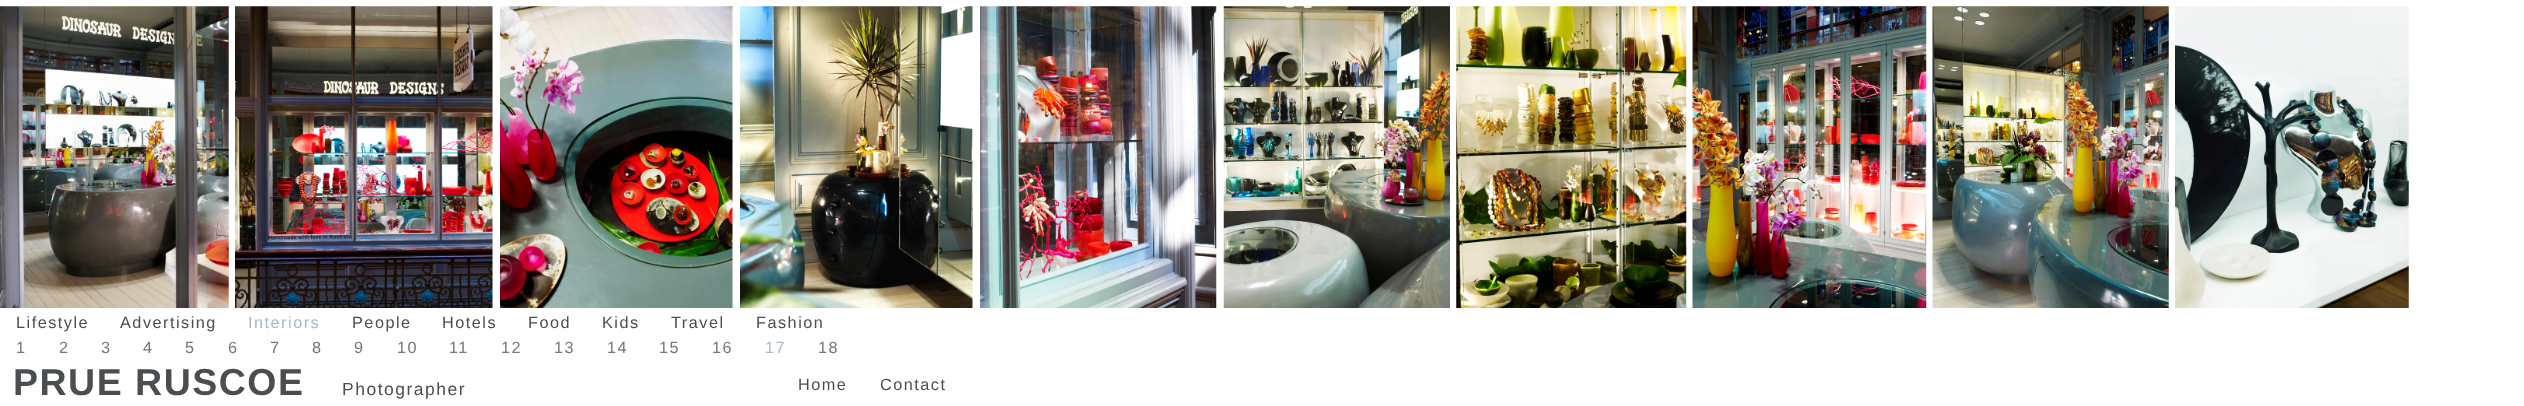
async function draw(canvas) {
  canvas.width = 2524;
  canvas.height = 406;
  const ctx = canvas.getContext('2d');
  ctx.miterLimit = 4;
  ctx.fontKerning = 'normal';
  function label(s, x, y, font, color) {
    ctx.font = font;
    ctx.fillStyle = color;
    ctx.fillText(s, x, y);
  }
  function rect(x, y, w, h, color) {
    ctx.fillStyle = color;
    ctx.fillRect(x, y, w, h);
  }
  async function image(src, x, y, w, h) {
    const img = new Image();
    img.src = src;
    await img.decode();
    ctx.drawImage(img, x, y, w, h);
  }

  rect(0, 0, 2524, 406, '#fff');
  await image('assets/img1.png', 0, 6, 229, 302);
  await image('assets/img2.png', 235, 6, 258, 302);
  await image('assets/img3.png', 500, 6, 233, 302);
  await image('assets/img4.png', 740, 6, 233, 302);
  await image('assets/img5.png', 980, 6, 237, 302);
  await image('assets/img6.png', 1223, 6, 227, 302);
  await image('assets/img7.png', 1456, 6, 231, 302);
  await image('assets/img8.png', 1692, 6, 235, 302);
  await image('assets/img9.png', 1932, 6, 237, 302);
  await image('assets/img10.png', 2175, 6, 234, 302);
  ctx.letterSpacing = '1.5px';
  label('Lifestyle', 16, 328, '16.25px Liberation Sans', '#4b4e50');
  label('Interiors', 248, 328, '16.25px Liberation Sans', '#a7bac9');
  label('1', 16, 353, '16.25px Liberation Sans', '#777');
  label('2', 59, 353, '16.25px Liberation Sans', '#777');
  label('3', 101, 353, '16.25px Liberation Sans', '#777');
  label('4', 143, 353, '16.25px Liberation Sans', '#777');
  label('5', 185, 353, '16.25px Liberation Sans', '#777');
  label('6', 228, 353, '16.25px Liberation Sans', '#777');
  label('7', 270, 353, '16.25px Liberation Sans', '#777');
  label('8', 312, 353, '16.25px Liberation Sans', '#777');
  label('9', 354, 353, '16.25px Liberation Sans', '#777');
  label('10', 397, 353, '16.25px Liberation Sans', '#777');
  label('11', 449, 353, '16.25px Liberation Sans', '#777');
  label('12', 501, 353, '16.25px Liberation Sans', '#777');
  label('13', 554, 353, '16.25px Liberation Sans', '#777');
  label('14', 607, 353, '16.25px Liberation Sans', '#777');
  label('15', 659, 353, '16.25px Liberation Sans', '#777');
  label('16', 712, 353, '16.25px Liberation Sans', '#777');
  label('17', 765, 353, '16.25px Liberation Sans', '#a7bac9');
  label('18', 818, 353, '16.25px Liberation Sans', '#777');
  label('Advertising', 120, 328, '16.25px Liberation Sans', '#4b4e50');
  label('People', 352, 328, '16.25px Liberation Sans', '#4b4e50');
  label('Hotels', 442, 328, '16.25px Liberation Sans', '#4b4e50');
  label('Food', 528, 328, '16.25px Liberation Sans', '#4b4e50');
  label('Kids', 602, 328, '16.25px Liberation Sans', '#4b4e50');
  label('Travel', 671, 328, '16.25px Liberation Sans', '#4b4e50');
  label('Fashion', 756, 328, '16.25px Liberation Sans', '#4b4e50');
  label('PRUE RUSCOE', 13, 395, 'bold 37.5px Liberation Sans', '#4b4e50');
  label('Photographer', 342, 395, '17.5px Liberation Sans', '#4b4e50');
  label('Home', 798, 390, '16.25px Liberation Sans', '#4b4e50');
  label('Contact', 880, 390, '16.25px Liberation Sans', '#4b4e50');
}

draw(document.querySelector('canvas'));
